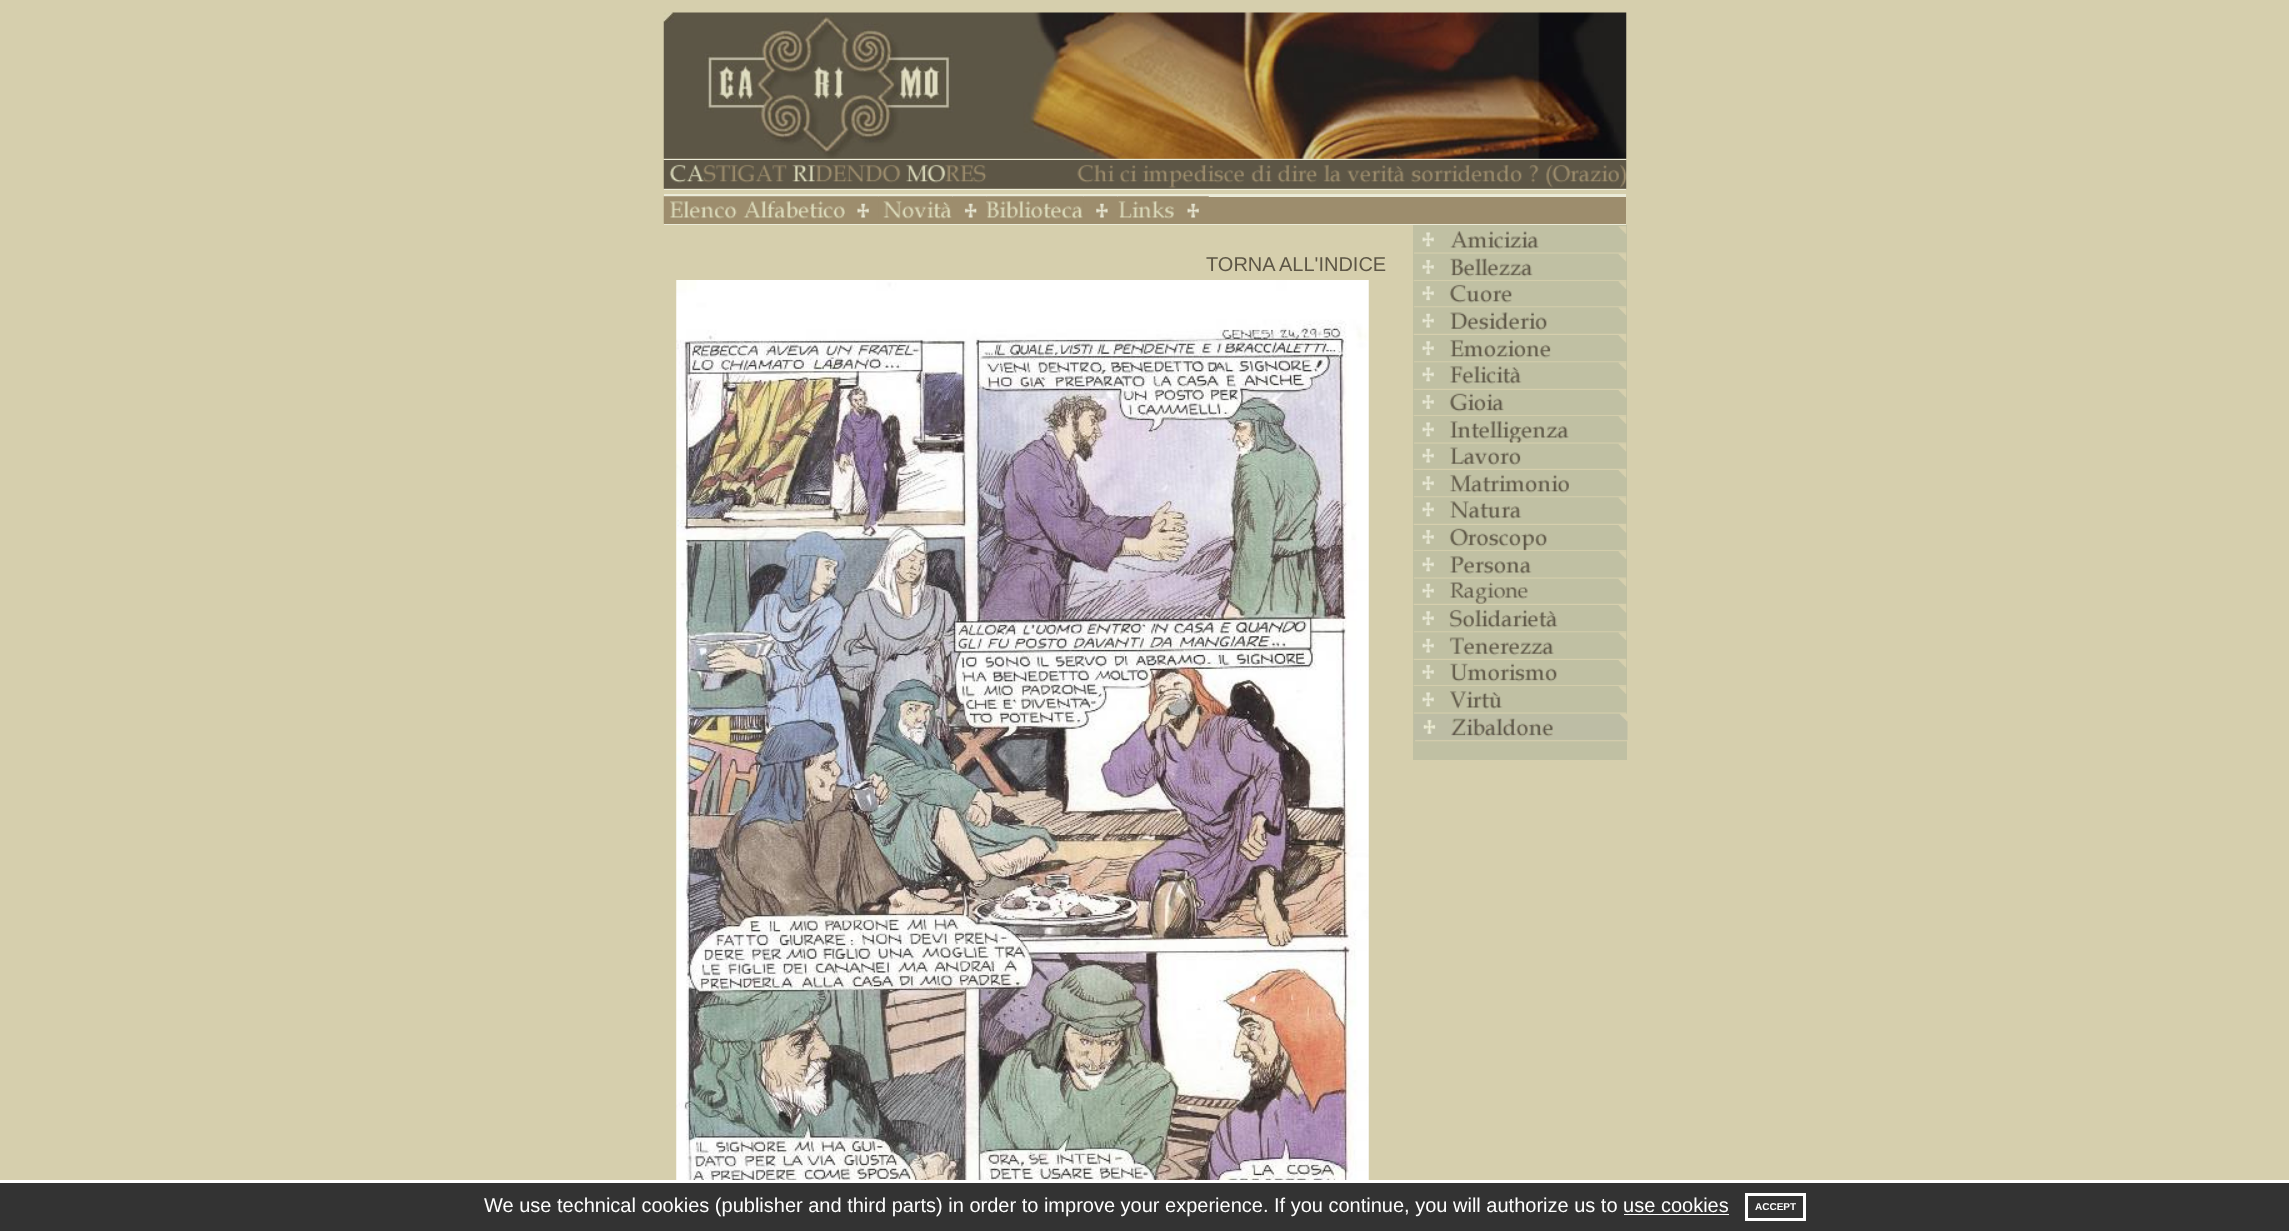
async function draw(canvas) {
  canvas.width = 2289;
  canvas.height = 1231;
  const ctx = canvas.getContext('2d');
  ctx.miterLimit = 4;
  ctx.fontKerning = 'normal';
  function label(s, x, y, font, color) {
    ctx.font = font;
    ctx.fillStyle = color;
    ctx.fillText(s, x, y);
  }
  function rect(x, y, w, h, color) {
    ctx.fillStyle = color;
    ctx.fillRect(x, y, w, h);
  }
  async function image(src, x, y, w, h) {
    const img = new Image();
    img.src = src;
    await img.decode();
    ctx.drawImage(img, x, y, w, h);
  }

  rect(0, 0, 2289, 1231, '#d6cfad');
  await image('assets/img1.png', 663, 12, 964, 147);
  await image('assets/img2.png', 663, 160, 964, 29);
  rect(664, 159, 962, 1, '#ebebd8');
  rect(664, 189, 962, 1, '#ebebd8');
  rect(664, 197, 962, 27, '#9d8d6d');
  rect(664, 194, 962, 3, '#ebebd8');
  rect(664, 224, 962, 1, '#ebebd8');
  await image('assets/img3.png', 663, 196, 182, 28);
  await image('assets/img4.png', 845, 196, 34, 22);
  await image('assets/img5.png', 878, 196, 75, 23);
  await image('assets/img6.png', 952, 196, 35, 22);
  await image('assets/img7.png', 986, 196, 98, 23);
  await image('assets/img8.png', 1083, 196, 35, 22);
  await image('assets/img9.png', 1117, 196, 58, 23);
  await image('assets/img10.png', 1175, 196, 34, 22);
  rect(1413, 225, 214, 535, '#c0c0a3');
  label('TORNA ALL\'INDICE', 1206, 271, '20px Liberation Sans', '#5d5646');
  await image('assets/img11.png', 676, 280, 693, 900);
  await image('assets/img12.png', 1414, 226, 213, 28);
  await image('assets/img13.png', 1413, 253, 214, 29);
  await image('assets/img14.png', 1414, 281, 213, 27);
  await image('assets/img15.png', 1413, 307, 214, 28);
  await image('assets/img16.png', 1414, 335, 213, 28);
  await image('assets/img17.png', 1413, 362, 214, 28);
  await image('assets/img18.png', 1413, 390, 214, 27);
  await image('assets/img19.png', 1414, 416, 213, 28);
  await image('assets/img20.png', 1413, 443, 214, 27);
  await image('assets/img21.png', 1414, 470, 213, 28);
  await image('assets/img22.png', 1413, 497, 214, 28);
  await image('assets/img23.png', 1413, 525, 214, 27);
  await image('assets/img24.png', 1414, 551, 213, 28);
  await image('assets/img25.png', 1413, 578, 214, 27);
  await image('assets/img26.png', 1414, 605, 213, 28);
  await image('assets/img27.png', 1413, 632, 214, 28);
  await image('assets/img28.png', 1413, 660, 214, 27);
  await image('assets/img29.png', 1414, 686, 213, 28);
  await image('assets/img30.png', 1414, 713, 214, 29);
  rect(0, 1183, 2289, 48, '#333');
  rect(0, 1180, 2289, 3, '#fff');
  label('We use technical cookies (publisher and third parts) in order to improve your experience. If you continue, you will authorize us to use cookies', 484, 1212, '20px Liberation Sans', '#fff');
  rect(1624, 1214, 105, 1, '#fff');
  ctx.strokeStyle = '#fff';
  ctx.lineWidth = 3;
  ctx.strokeRect(1746.5, 1194.5, 58, 25);
  label('ACCEPT', 1755, 1210, 'bold 10px Liberation Sans', '#fff');
}

draw(document.querySelector('canvas'));
